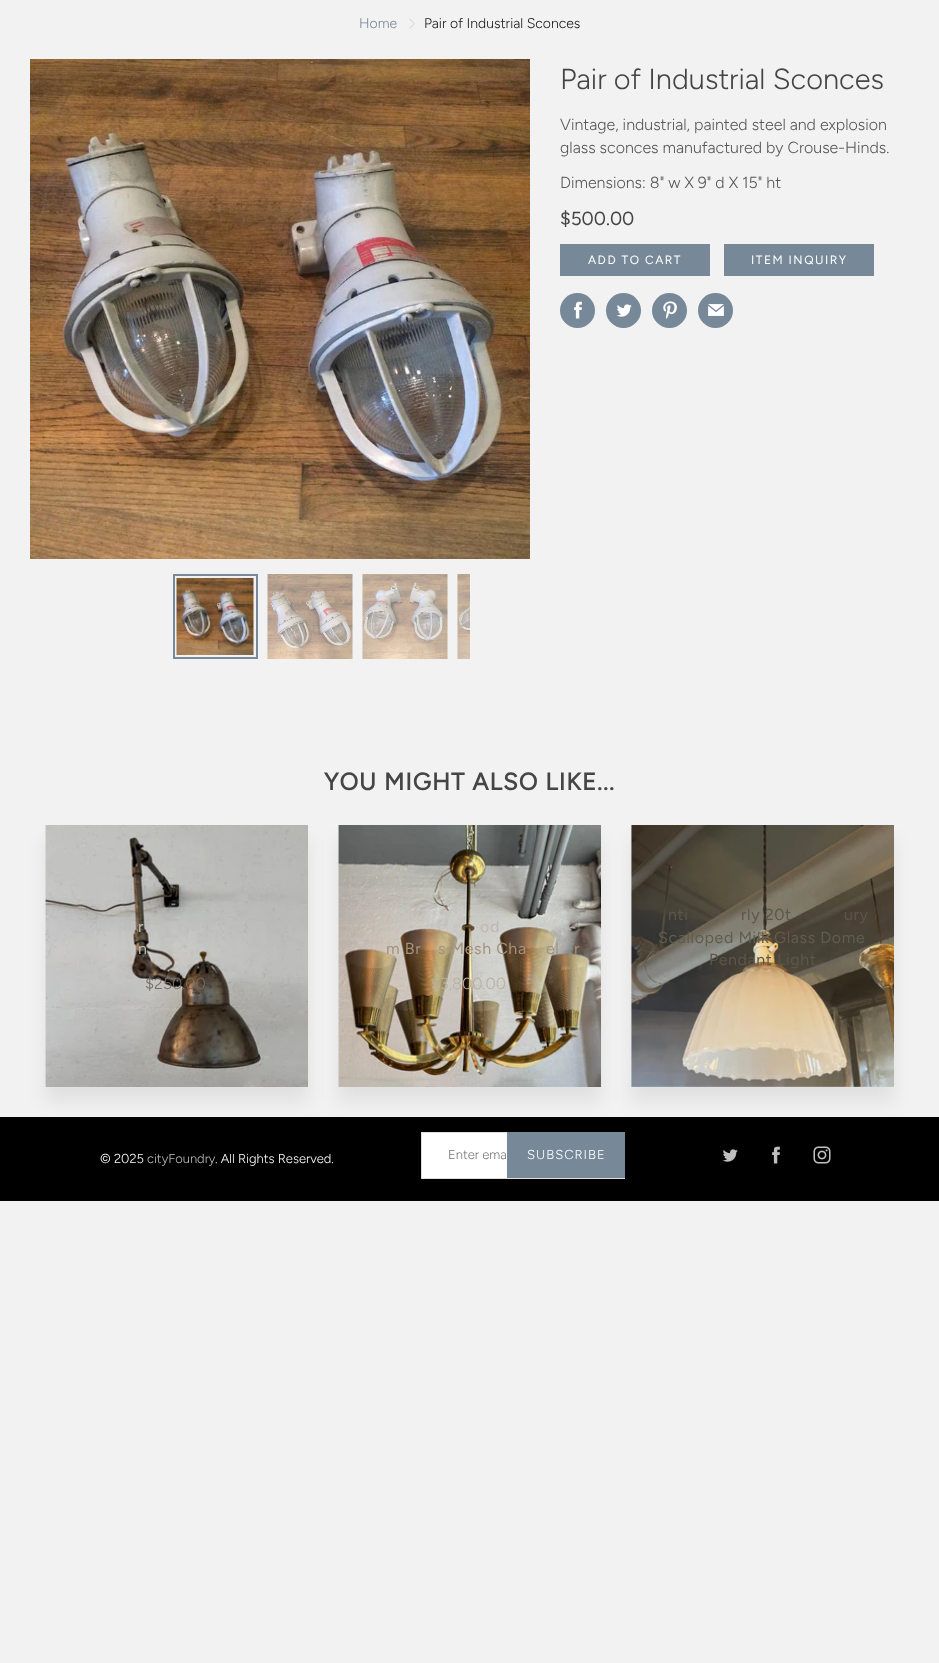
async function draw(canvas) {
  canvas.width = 939;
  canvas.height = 1663;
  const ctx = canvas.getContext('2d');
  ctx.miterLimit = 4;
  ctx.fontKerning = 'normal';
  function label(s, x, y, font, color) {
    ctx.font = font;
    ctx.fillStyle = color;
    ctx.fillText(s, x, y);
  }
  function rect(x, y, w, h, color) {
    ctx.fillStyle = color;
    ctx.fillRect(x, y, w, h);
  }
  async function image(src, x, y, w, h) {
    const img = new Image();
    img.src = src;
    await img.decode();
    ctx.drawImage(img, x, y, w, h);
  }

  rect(0, 0, 939, 1663, '#f2f2f2');
  label('Home', 359, 28, '300 14px Figtree', '#789');
  await image('assets/img1.png', 409, 18, 6, 11);
  label('Pair of Industrial Sconces', 424, 28, '300 14px Figtree', '#131517');
  await image('assets/img2.png', 30, 59, 500, 500);
  ctx.strokeStyle = '#789';
  ctx.lineWidth = 2;
  ctx.strokeRect(174, 575, 83, 83);
  await image('assets/img3.png', 176, 578, 78, 77);
  await image('assets/img4.png', 267, 574, 86, 85);
  await image('assets/img5.png', 362, 574, 86, 85);
  await image('assets/img6.png', 457, 574, 13, 85);
  label('Pair of Industrial Sconces', 560, 89, '300 29px Figtree', '#454545');
  label('Vintage, industrial, painted steel and explosion', 560, 130, '300 16px Figtree', '#565656');
  label('glass sconces manufactured by Crouse-Hinds.', 560, 153, '300 16px Figtree', '#565656');
  label('Dimensions: 8" w X 9" d X 15" ht', 560, 188, '300 16px Figtree', '#565656');
  label('$500.00', 560, 225, '19px Figtree', '#454545');
  rect(560, 244, 150, 32, '#789');
  ctx.letterSpacing = '1.5px';
  label('ADD TO CART', 588, 264, '12px Figtree', '#fff');
  rect(724, 244, 150, 32, '#789');
  label('ITEM INQUIRY', 751, 264, '12px Figtree', '#fff');
  ctx.fillStyle = '#789';
  ctx.beginPath();
  ctx.arc(577.5, 310.5, 17.5, 0, 2 * Math.PI);
  ctx.fill();
  await image('assets/img7.png', 574, 301, 8, 18);
  ctx.beginPath();
  ctx.arc(623.5, 310.5, 17.5, 0, 2 * Math.PI);
  ctx.fill();
  await image('assets/img8.png', 616, 304, 16, 13);
  ctx.beginPath();
  ctx.arc(669.5, 310.5, 17.5, 0, 2 * Math.PI);
  ctx.fill();
  await image('assets/img9.png', 663, 301, 14, 18);
  ctx.beginPath();
  ctx.arc(715.5, 310.5, 17.5, 0, 2 * Math.PI);
  ctx.fill();
  await image('assets/img10.png', 708, 304, 16, 12);
  ctx.letterSpacing = '1px';
  label('YOU MIGHT ALSO LIKE...', 324, 790, 'bold 24px Figtree', '#454545');
  rect(0, 1117, 939, 84, '#000');
  ctx.fillStyle = '#00000012';
  ctx.filter = 'blur(9px)';
  ctx.beginPath();
  ctx.rect(45, 839, 263, 263);
  ctx.fill();
  ctx.filter = 'none';
  await image('assets/img11.png', 45, 825, 263, 262);
  ctx.letterSpacing = '0.6px';
  label('r', 138, 932, '16px Figtree', '#bdbdbd');
  label('n', 138, 954, '16px Figtree', '#bbbbb7');
  ctx.letterSpacing = '0px';
  label('$250.00', 145, 989, '300 16px Figtree', '#776d63');
  ctx.fillStyle = '#00000012';
  ctx.filter = 'blur(9px)';
  ctx.beginPath();
  ctx.rect(338, 839, 263, 263);
  ctx.fill();
  ctx.filter = 'none';
  await image('assets/img12.png', 338, 825, 263, 262);
  ctx.letterSpacing = '0.6px';
  label('od', 480, 932, '16px Figtree', '#bdb8b0');
  label('-', 569, 932, '16px Figtree', '#bdb8b0');
  label('m Br', 386, 954, '16px Figtree', '#a3937d');
  label('s Mesh Cha', 438, 954, '16px Figtree', '#a3937d');
  label('el', 546, 954, '16px Figtree', '#a3937d');
  label('r', 574, 954, '16px Figtree', '#a3937d');
  ctx.letterSpacing = '0px';
  label('$3,800.00', 431, 989, '300 16px Figtree', '#b9b1a0');
  ctx.fillStyle = '#00000012';
  ctx.filter = 'blur(9px)';
  ctx.beginPath();
  ctx.rect(631, 839, 263, 263);
  ctx.fill();
  ctx.filter = 'none';
  await image('assets/img13.png', 631, 825, 263, 262);
  ctx.letterSpacing = '0.6px';
  label('nti', 668, 920, '16px Figtree', '#5d564a');
  label('rly 20t', 741, 920, '16px Figtree', '#5d564a');
  label('ury', 844, 920, '16px Figtree', '#5d564a');
  label('Scalloped Milk Glass Dome', 658, 943, '16px Figtree', '#605c4f');
  label('Pendant Light', 709, 965, '16px Figtree', '#5d564a');
  ctx.letterSpacing = '0px';
  label('© 2025', 100, 1163, '300 13px Figtree', '#fff');
  label('cityFoundry', 147, 1163, '300 13px Figtree', '#bdbdbd');
  label('. All Rights Reserved.', 215, 1163, '300 13px Figtree', '#fff');
  rect(422, 1133, 85, 45, '#fff');
  ctx.strokeStyle = '#ddd';
  ctx.lineWidth = 1;
  ctx.strokeRect(421.5, 1132.5, 203, 46);
  label('Enter ema', 448, 1159, '300 13px Figtree', '#757575');
  rect(507, 1132, 118, 46, '#789');
  ctx.letterSpacing = '1px';
  label('SUBSCRIBE', 527, 1159, '300 13px Figtree', '#fff');
  await image('assets/img14.png', 722, 1149, 16, 13);
  await image('assets/img15.png', 772, 1146, 8, 18);
  await image('assets/img16.png', 813, 1146, 18, 18);
}

draw(document.querySelector('canvas'));
